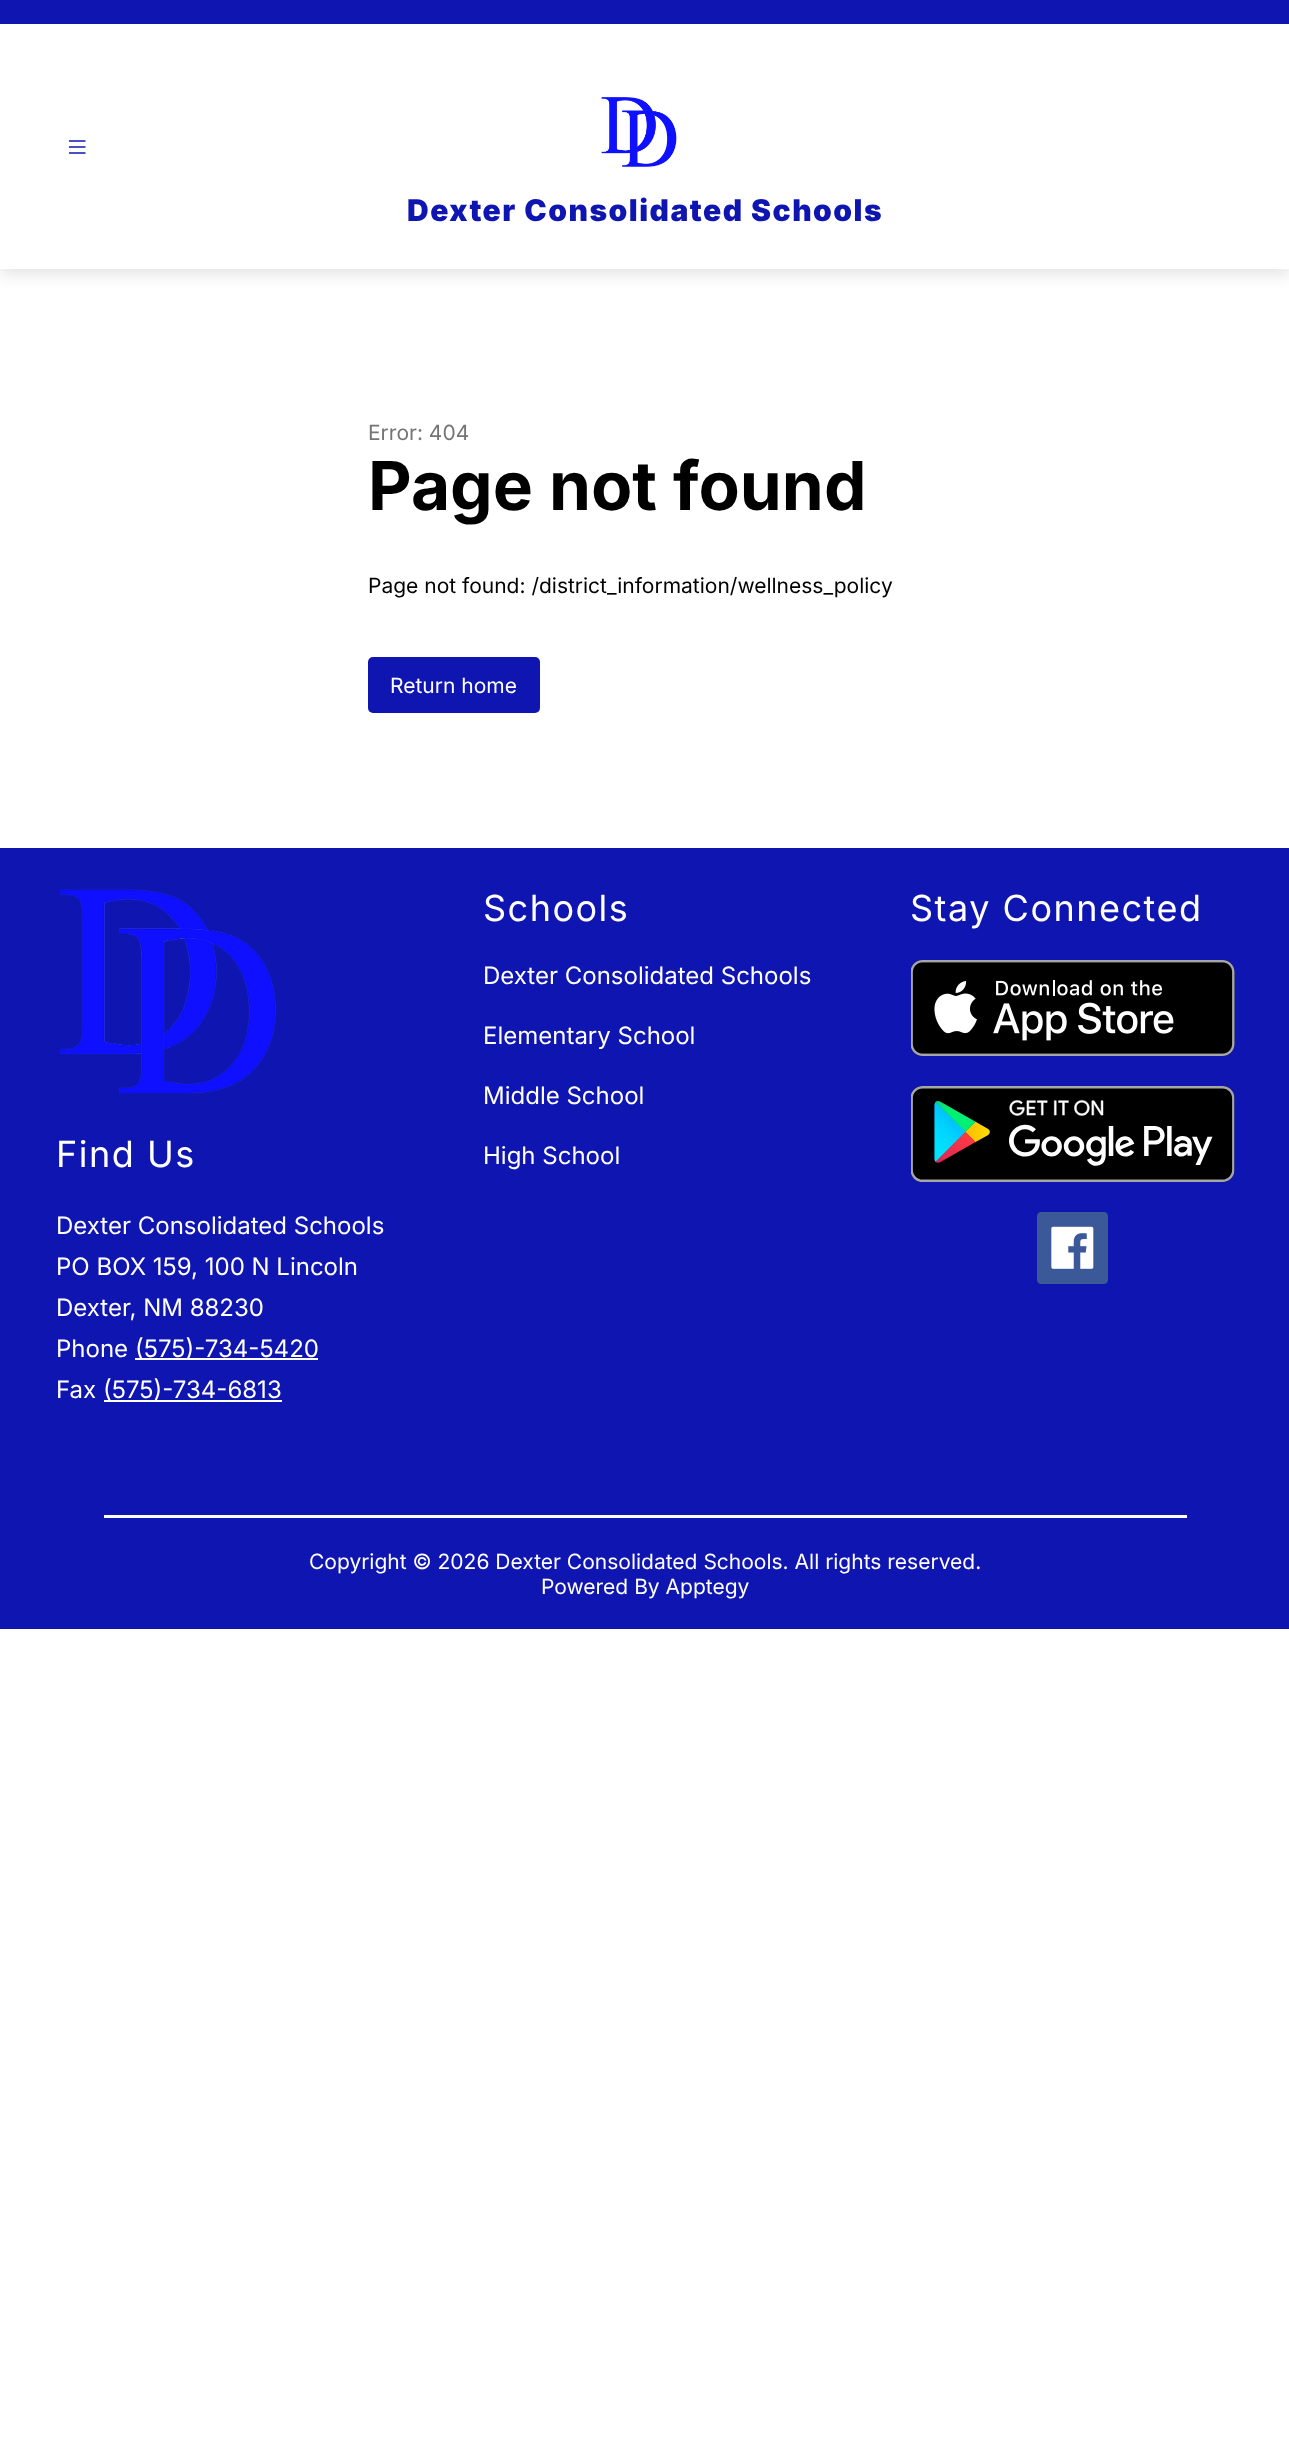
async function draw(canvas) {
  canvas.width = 1289;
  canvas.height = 2456;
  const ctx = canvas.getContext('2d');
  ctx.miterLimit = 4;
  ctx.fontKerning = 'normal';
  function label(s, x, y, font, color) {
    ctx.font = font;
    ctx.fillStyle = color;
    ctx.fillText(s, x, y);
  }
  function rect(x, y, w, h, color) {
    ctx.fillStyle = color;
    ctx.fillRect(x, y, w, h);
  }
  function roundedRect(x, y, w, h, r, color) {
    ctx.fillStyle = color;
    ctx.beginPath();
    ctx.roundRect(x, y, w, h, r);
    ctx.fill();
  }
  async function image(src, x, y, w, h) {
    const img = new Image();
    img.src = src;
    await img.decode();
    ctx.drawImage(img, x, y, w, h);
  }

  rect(0, 0, 1289, 2456, '#fff');
  ctx.fillStyle = '#0000001a';
  ctx.filter = 'blur(7.5px)';
  ctx.beginPath();
  ctx.rect(0, 6, 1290, 269);
  ctx.fill();
  ctx.filter = 'none';
  rect(0, 24, 1289, 245, '#fff');
  rect(0, 0, 1289, 24, '#0f15b0');
  await image('assets/img1.png', 69, 140, 17, 14);
  await image('assets/img2.png', 601, 97, 76, 70);
  ctx.letterSpacing = '1.5px';
  label('Dexter Consolidated Schools', 407, 221, '900 30px Inter', '#0f15b0');
  ctx.letterSpacing = '0px';
  label('Error: 404', 368, 440, '21px Inter', '#747474');
  label('Page not found', 368, 510, 'bold 67.5px Inter', '#000');
  label('Page not found: /district_information/wellness_policy', 368, 593, '21px Inter', '#000');
  roundedRect(368, 657, 172, 56, 5, '#0f15b0');
  label('Return home', 390, 693, '21px Inter', '#fff');
  rect(0, 848, 1289, 781, '#0f15b0');
  ctx.letterSpacing = '1.5px';
  label('Schools', 483, 921, '36px Inter', '#fff');
  ctx.letterSpacing = '0px';
  label('Dexter Consolidated Schools', 483, 984, '24px Inter', '#fff');
  label('Elementary School', 483, 1044, '24px Inter', '#fff');
  label('Middle School', 483, 1104, '24px Inter', '#fff');
  label('High School', 483, 1164, '24px Inter', '#fff');
  ctx.letterSpacing = '1.5px';
  label('Stay Connected', 910, 921, '36px Inter', '#fff');
  await image('assets/img3.png', 911, 960, 324, 96);
  await image('assets/img4.png', 911, 1086, 324, 96);
  await image('assets/img5.png', 1037, 1212, 71, 72);
  await image('assets/img6.png', 60, 889, 216, 205);
  label('Find Us', 56, 1167, '36px Inter', '#fff');
  ctx.letterSpacing = '0px';
  label('Dexter Consolidated Schools', 56, 1234, '24px Inter', '#fff');
  label('PO BOX 159, 100 N Lincoln', 56, 1275, '24px Inter', '#fff');
  label('Dexter, NM 88230', 56, 1316, '24px Inter', '#fff');
  label('Phone', 56, 1357, '24px Inter', '#fff');
  rect(135, 1358, 183, 2, '#fff');
  label('(575)-734-5420', 135, 1357, '24px Inter', '#fff');
  label('Fax', 56, 1398, '24px Inter', '#fff');
  rect(104, 1400, 178, 2, '#fff');
  label('(575)-734-6813', 103, 1398, '24px Inter', '#fff');
  rect(104, 1515, 1083, 3, '#fff');
  label('Copyright © 2026 Dexter Consolidated Schools. All rights reserved.', 309, 1569, '21px Inter', '#fff');
  label('Powered By Apptegy', 541, 1594, '21px Inter', '#fff');
}

draw(document.querySelector('canvas'));
